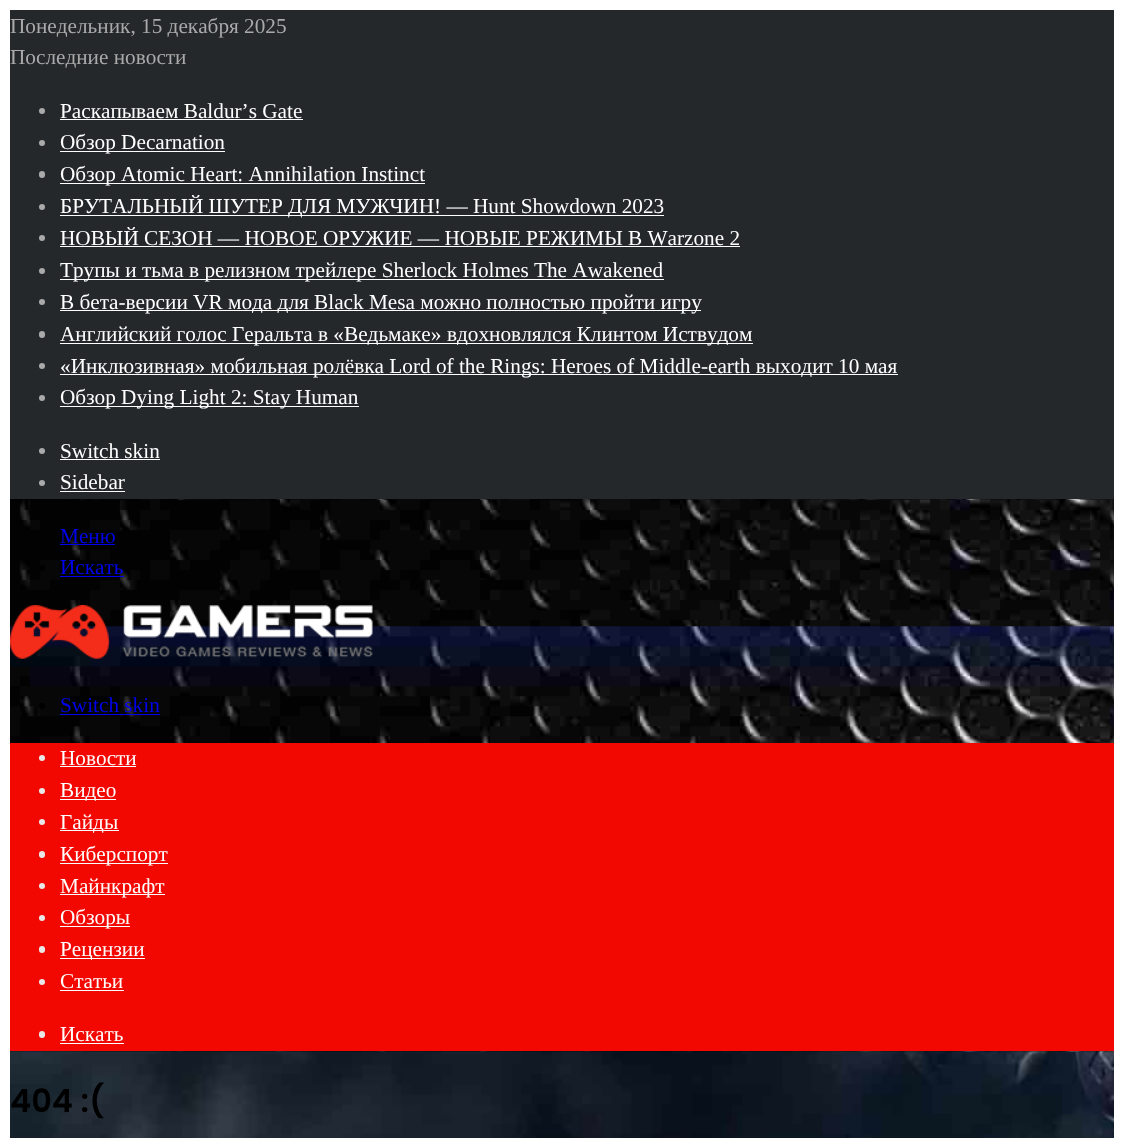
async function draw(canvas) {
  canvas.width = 1123;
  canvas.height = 1138;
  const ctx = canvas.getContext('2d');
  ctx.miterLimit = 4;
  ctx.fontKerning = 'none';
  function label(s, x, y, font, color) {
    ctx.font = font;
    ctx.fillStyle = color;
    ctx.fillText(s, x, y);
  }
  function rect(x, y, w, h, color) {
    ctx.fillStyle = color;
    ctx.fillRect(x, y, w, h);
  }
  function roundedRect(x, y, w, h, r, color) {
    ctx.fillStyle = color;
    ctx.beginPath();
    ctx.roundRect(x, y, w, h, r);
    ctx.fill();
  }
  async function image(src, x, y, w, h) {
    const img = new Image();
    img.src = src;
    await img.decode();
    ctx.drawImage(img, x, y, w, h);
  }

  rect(0, 0, 1123, 1138, '#fff');
  await image('assets/img1.png', 10, 499, 1104, 639);
  await image('assets/img2.png', 10, 499, 1104, 553);
  rect(10, 10, 1104, 489, '#25282b');
  label('Понедельник, 15 декабря 2025', 10, 33, '21.25px Liberation Serif', '#aaa');
  label('Последние новости', 10, 64, '21.25px Liberation Serif', '#aaa');
  ctx.beginPath();
  ctx.arc(42, 111, 3, 0, 2 * Math.PI);
  ctx.fill();
  label('Раскапываем Baldur’s Gate', 60, 118, '21.25px Liberation Serif', '#fff');
  rect(60, 119, 243, 1, '#fff');
  ctx.fillStyle = '#aaa';
  ctx.beginPath();
  ctx.arc(42, 143, 3, 0, 2 * Math.PI);
  ctx.fill();
  rect(60, 151, 165, 1, '#fff');
  label('Обзор Decarnation', 60, 149, '21.25px Liberation Serif', '#fff');
  roundedRect(39, 171, 6, 7, 3, '#aaa');
  rect(60, 183, 365, 1, '#fff');
  label('Обзор Atomic Heart: Annihilation Instinct', 60, 181, '21.25px Liberation Serif', '#fff');
  ctx.fillStyle = '#aaa';
  ctx.beginPath();
  ctx.arc(42, 207, 3, 0, 2 * Math.PI);
  ctx.fill();
  rect(60, 215, 604, 1, '#fff');
  label('БРУТАЛЬНЫЙ ШУТЕР ДЛЯ МУЖЧИН! — Hunt Showdown 2023', 60, 213, '21.25px Liberation Serif', '#fff');
  ctx.fillStyle = '#aaa';
  ctx.beginPath();
  ctx.arc(42, 238, 3, 0, 2 * Math.PI);
  ctx.fill();
  label('НОВЫЙ СЕЗОН — НОВОЕ ОРУЖИЕ — НОВЫЕ РЕЖИМЫ В Warzone 2', 60, 245, '21.25px Liberation Serif', '#fff');
  rect(60, 246, 680, 1, '#fff');
  ctx.fillStyle = '#aaa';
  ctx.beginPath();
  ctx.arc(42, 271, 3, 0, 2 * Math.PI);
  ctx.fill();
  rect(60, 279, 604, 1, '#fff');
  label('Трупы и тьма в релизном трейлере Sherlock Holmes The Awakened', 60, 277, '21.25px Liberation Serif', '#fff');
  ctx.fillStyle = '#aaa';
  ctx.beginPath();
  ctx.arc(42, 302, 3, 0, 2 * Math.PI);
  ctx.fill();
  rect(60, 310, 641, 1, '#fff');
  label('В бета-версии VR мода для Black Mesa можно полностью пройти игру', 60, 309, '21.25px Liberation Serif', '#fff');
  roundedRect(39, 331, 6, 7, 3, '#aaa');
  rect(60, 343, 693, 1, '#fff');
  label('Английский голос Геральта в «Ведьмаке»', 60, 341, '21.25px Liberation Serif', '#fff');
  label('вдохновлялся Клинтом Иствудом', 447, 341, '21.25px Liberation Serif', '#fff');
  ctx.fillStyle = '#aaa';
  ctx.beginPath();
  ctx.arc(42, 366, 3, 0, 2 * Math.PI);
  ctx.fill();
  rect(60, 374, 838, 1, '#fff');
  label('«Инклюзивная» мобильная ролёвка Lord of the Rings: Heroes of Middle-earth выходит 10 мая', 60, 373, '21.25px Liberation Serif', '#fff');
  ctx.fillStyle = '#aaa';
  ctx.beginPath();
  ctx.arc(42, 398, 3, 0, 2 * Math.PI);
  ctx.fill();
  rect(60, 406, 299, 1, '#fff');
  label('Обзор Dying Light 2: Stay Human', 60, 404, '21.25px Liberation Serif', '#fff');
  ctx.fillStyle = '#aaa';
  ctx.beginPath();
  ctx.arc(42, 451, 3, 0, 2 * Math.PI);
  ctx.fill();
  label('Switch skin', 60, 458, '21.25px Liberation Serif', '#fff');
  rect(60, 459, 100, 1, '#fff');
  ctx.fillStyle = '#aaa';
  ctx.beginPath();
  ctx.arc(42, 483, 3, 0, 2 * Math.PI);
  ctx.fill();
  label('Sidebar', 60, 489, '21.25px Liberation Serif', '#fff');
  rect(60, 491, 65, 1, '#fff');
  label('Меню', 60, 543, '21.25px Liberation Serif', '#00e');
  rect(60, 544, 55, 1, '#00e');
  ctx.fillStyle = '#000';
  ctx.beginPath();
  ctx.arc(42, 568, 3, 0, 2 * Math.PI);
  ctx.fill();
  label('Искать', 60, 574, '21.25px Liberation Serif', '#00e');
  rect(60, 576, 64, 1, '#00e');
  await image('assets/img3.png', 10, 605, 363, 54);
  ctx.fillStyle = '#000';
  ctx.beginPath();
  ctx.arc(42, 706, 3, 0, 2 * Math.PI);
  ctx.fill();
  label('Switch skin', 60, 712, '21.25px Liberation Serif', '#00e');
  rect(60, 714, 100, 1, '#00e');
  rect(10, 743, 1104, 308, '#f20800');
  ctx.fillStyle = '#e8e8e8';
  ctx.beginPath();
  ctx.arc(42, 758, 3, 0, 2 * Math.PI);
  ctx.fill();
  label('Новости', 60, 765, '21.25px Liberation Serif', '#fff');
  rect(60, 766, 76, 1, '#fff');
  ctx.fillStyle = '#e8e8e8';
  ctx.beginPath();
  ctx.arc(42, 791, 3, 0, 2 * Math.PI);
  ctx.fill();
  rect(60, 799, 56, 1, '#fff');
  label('Видео', 60, 797, '21.25px Liberation Serif', '#fff');
  ctx.fillStyle = '#e8e8e8';
  ctx.beginPath();
  ctx.arc(42, 822, 3, 0, 2 * Math.PI);
  ctx.fill();
  rect(60, 830, 59, 1, '#fff');
  label('Гайды', 60, 829, '21.25px Liberation Serif', '#fff');
  roundedRect(39, 851, 6, 7, 3, '#e8e8e8');
  rect(60, 863, 108, 1, '#fff');
  label('Киберспорт', 60, 861, '21.25px Liberation Serif', '#fff');
  ctx.fillStyle = '#e8e8e8';
  ctx.beginPath();
  ctx.arc(42, 886, 3, 0, 2 * Math.PI);
  ctx.fill();
  rect(60, 894, 105, 1, '#fff');
  label('Майнкрафт', 60, 893, '21.25px Liberation Serif', '#fff');
  ctx.fillStyle = '#e8e8e8';
  ctx.beginPath();
  ctx.arc(42, 918, 3, 0, 2 * Math.PI);
  ctx.fill();
  rect(60, 926, 70, 1, '#fff');
  label('Обзоры', 60, 924, '21.25px Liberation Serif', '#fff');
  roundedRect(39, 946, 6, 7, 3, '#e8e8e8');
  rect(60, 958, 85, 1, '#fff');
  label('Рецензии', 60, 956, '21.25px Liberation Serif', '#fff');
  ctx.fillStyle = '#e8e8e8';
  ctx.beginPath();
  ctx.arc(42, 982, 3, 0, 2 * Math.PI);
  ctx.fill();
  label('Статьи', 60, 988, '21.25px Liberation Serif', '#fff');
  rect(60, 990, 64, 1, '#fff');
  roundedRect(39, 1031, 6, 7, 3, '#e8e8e8');
  label('Искать', 60, 1041, '21.25px Liberation Serif', '#fff');
  rect(60, 1043, 64, 1, '#fff');
  label('404 :(', 10, 1112, '600 32px Poppins', '#000');
}

draw(document.querySelector('canvas'));
